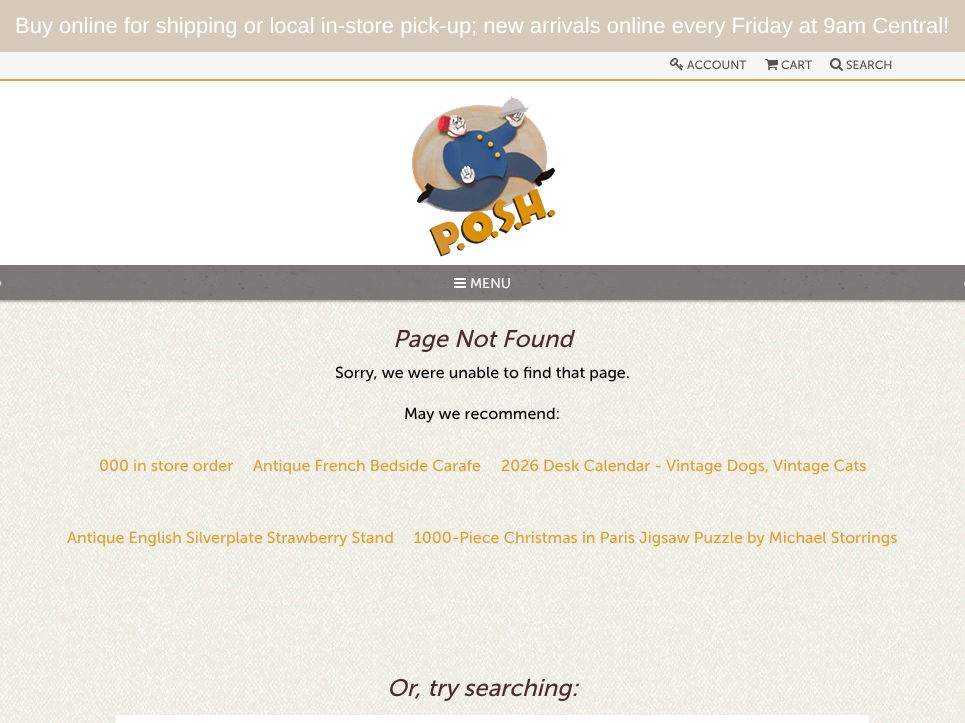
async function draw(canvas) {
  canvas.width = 965;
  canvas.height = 723;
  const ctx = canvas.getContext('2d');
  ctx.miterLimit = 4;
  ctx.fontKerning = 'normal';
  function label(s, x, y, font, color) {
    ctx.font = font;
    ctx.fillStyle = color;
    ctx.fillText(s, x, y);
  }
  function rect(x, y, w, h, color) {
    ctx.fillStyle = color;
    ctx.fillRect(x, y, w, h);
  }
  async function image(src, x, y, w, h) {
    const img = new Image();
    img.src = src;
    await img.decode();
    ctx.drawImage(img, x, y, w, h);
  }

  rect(0, 0, 965, 723, '#fff');
  rect(0, 0, 965, 52, '#d6cabb');
  label('Buy online for shipping or local in-store pick-up; new arrivals online every Friday at 9am Central!', 15, 33, '22px Liberation Sans', '#fff');
  rect(0, 52, 965, 27, '#f6f6f4');
  rect(0, 79, 965, 2, '#dea339');
  await image('assets/img1.png', 670, 58, 14, 13);
  label('ACCOUNT', 687, 69, '12px "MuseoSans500"', '#555');
  await image('assets/img2.png', 765, 59, 13, 11);
  label('CART', 781, 69, '12px "MuseoSans500"', '#555');
  await image('assets/img3.png', 830, 58, 13, 13);
  label('SEARCH', 846, 69, '12px "MuseoSans500"', '#555');
  await image('assets/img4.png', 411, 95, 145, 162);
  await image('assets/img7.png', 0, 300, 965, 423);
  await image('assets/img5.png', 0, 265, 965, 38);
  await image('assets/img6.png', 454, 278, 12, 10);
  label('MENU', 470, 288, '14px "MuseoSans500"', '#fff');
  label('Page Not Found', 393, 347, 'italic 24px "MuseoSans500"', '#4c2b2c');
  label('Sorry, we were unable to find that page.', 335, 378, '16px "MuseoSans500"', '#000');
  label('May we recommend:', 404, 419, '16px "MuseoSans500"', '#000');
  label('000 in store order', 99, 471, '16px "MuseoSans500"', '#dea339');
  label('Antique French Bedside Carafe', 253, 471, '16px "MuseoSans500"', '#dea339');
  label('2026 Desk Calendar - Vintage Dogs, Vintage Cats', 501, 471, '16px "MuseoSans500"', '#dea339');
  label('Antique English Silverplate Strawberry Stand', 67, 543, '16px "MuseoSans500"', '#dea339');
  label('1000-Piece Christmas in Paris Jigsaw Puzzle by Michael Storrings', 414, 543, '16px "MuseoSans500"', '#dea339');
  label('Or, try searching:', 387, 696, 'italic 24px "MuseoSans500"', '#4c2b2c');
  rect(116, 715, 753, 8, '#fff');
}

draw(document.querySelector('canvas'));
